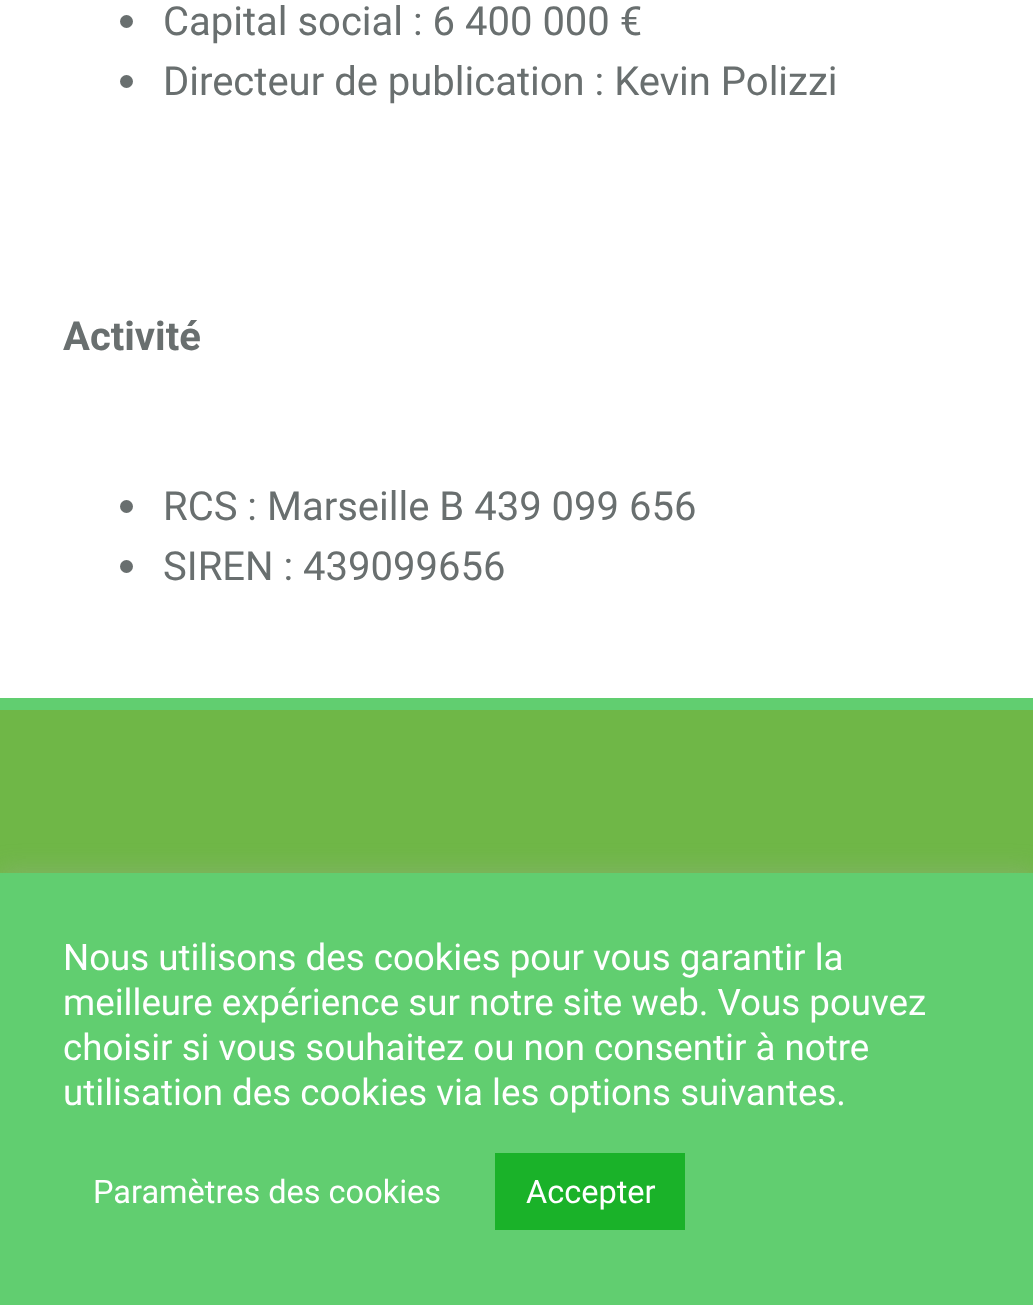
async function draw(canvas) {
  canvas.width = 1033;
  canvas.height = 1305;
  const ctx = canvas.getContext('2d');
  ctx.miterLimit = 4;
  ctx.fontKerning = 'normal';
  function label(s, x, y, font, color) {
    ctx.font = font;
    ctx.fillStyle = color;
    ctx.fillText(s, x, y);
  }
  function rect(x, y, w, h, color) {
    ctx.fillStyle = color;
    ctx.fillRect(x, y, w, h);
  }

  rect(0, 0, 1033, 1305, '#fff');
  ctx.fillStyle = '#696f6f';
  ctx.beginPath();
  ctx.arc(126.5, 21.5, 6.5, 0, 2 * Math.PI);
  ctx.fill();
  label('Capital social : 6 400 000 €', 163, 35, '40px Roboto', '#696f6f');
  ctx.beginPath();
  ctx.arc(126.5, 81.5, 6.5, 0, 2 * Math.PI);
  ctx.fill();
  label('Directeur de publication : Kevin Polizzi', 163, 95, '40px Roboto', '#696f6f');
  label('Activité', 63, 350, 'bold 40px Roboto', '#696f6f');
  ctx.beginPath();
  ctx.arc(126.5, 506.5, 6.5, 0, 2 * Math.PI);
  ctx.fill();
  label('RCS : Marseille B 439 099 656', 163, 520, '40px Roboto', '#696f6f');
  ctx.beginPath();
  ctx.arc(126.5, 566.5, 6.5, 0, 2 * Math.PI);
  ctx.fill();
  label('SIREN : 439099656', 163, 580, '40px Roboto', '#696f6f');
  rect(0, 710, 1033, 163, '#6fb747');
  rect(0, 698, 1033, 12, '#61ce70');
  ctx.fillStyle = '#acabab4d';
  ctx.filter = 'blur(12.5px)';
  ctx.beginPath();
  ctx.rect(0, 870, 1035, 433);
  ctx.fill();
  ctx.filter = 'none';
  rect(0, 873, 1033, 432, '#61ce70');
  label('Nous utilisons des cookies pour vous garantir la', 63, 970, '36.7px Roboto', '#fff');
  label('meilleure expérience sur notre site web. Vous pouvez', 63, 1015, '36.7px Roboto', '#fff');
  label('choisir si vous souhaitez ou non consentir à notre', 63, 1060, '36.7px Roboto', '#fff');
  label('utilisation des cookies via les options suivantes.', 63, 1105, '36.7px Roboto', '#fff');
  label('Paramètres des cookies', 93, 1203, '32.5px Roboto', '#fff');
  rect(495, 1153, 190, 77, '#1ab229');
  label('Accepter', 526, 1203, '32.5px Roboto', '#fff');
}

draw(document.querySelector('canvas'));
